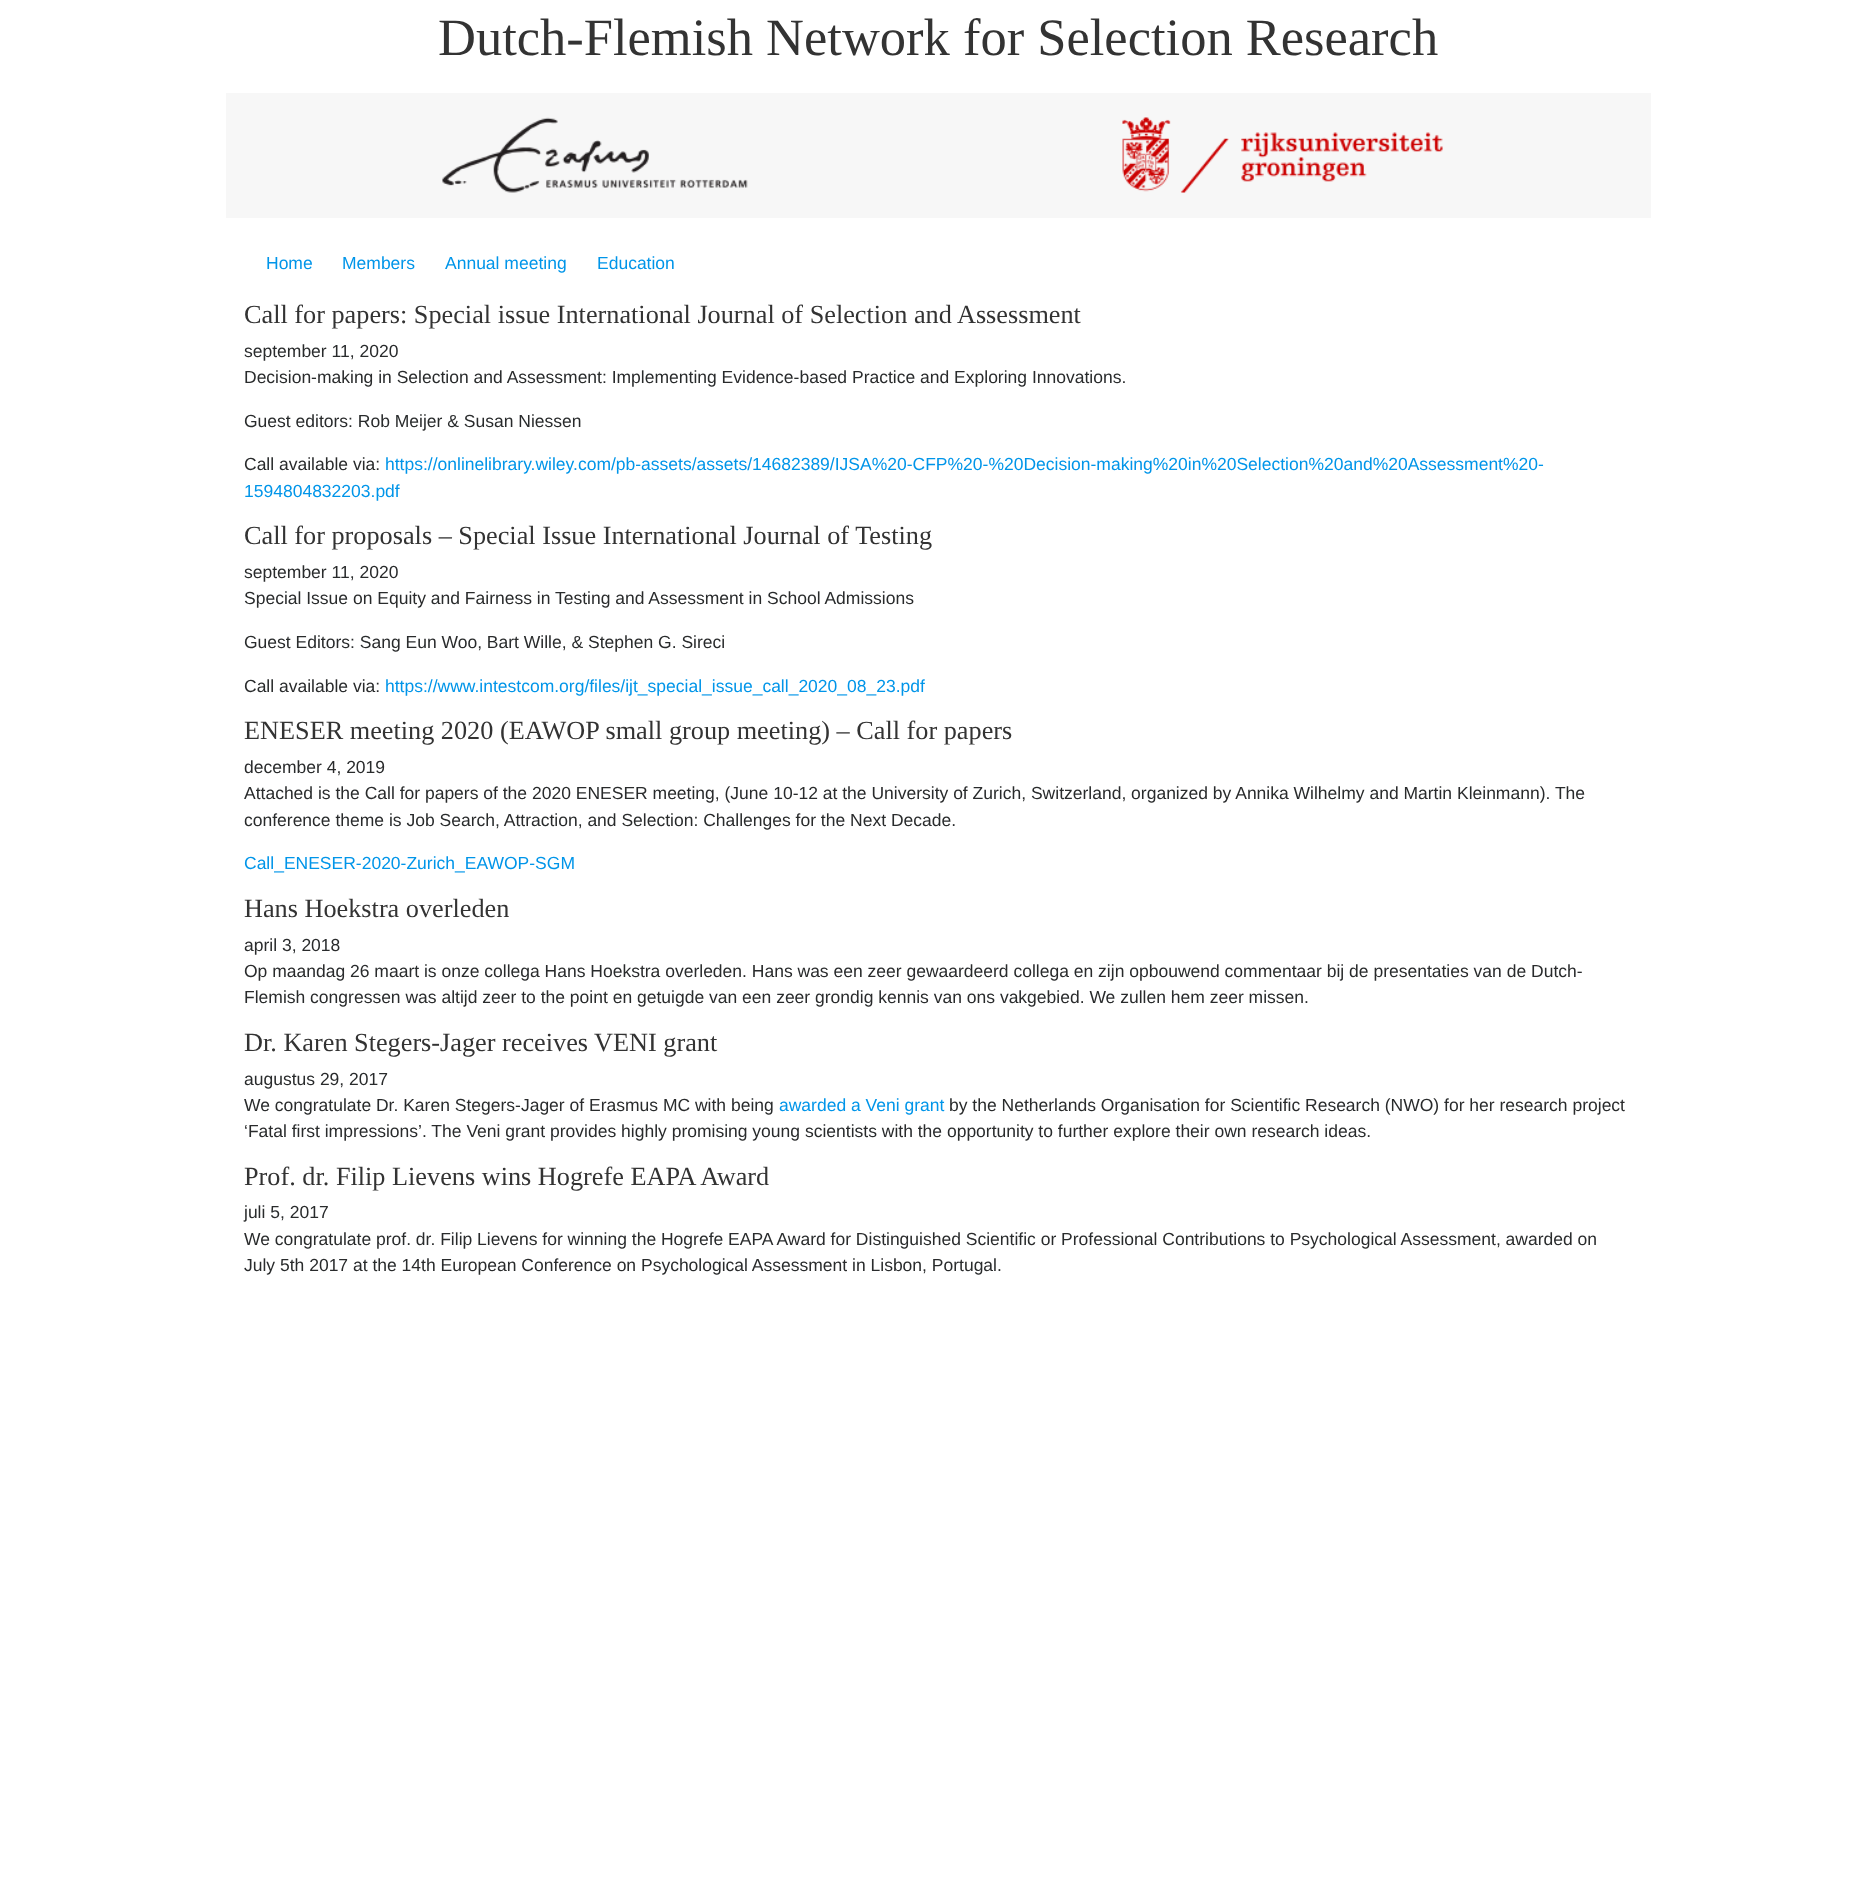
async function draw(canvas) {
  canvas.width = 1876;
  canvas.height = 1897;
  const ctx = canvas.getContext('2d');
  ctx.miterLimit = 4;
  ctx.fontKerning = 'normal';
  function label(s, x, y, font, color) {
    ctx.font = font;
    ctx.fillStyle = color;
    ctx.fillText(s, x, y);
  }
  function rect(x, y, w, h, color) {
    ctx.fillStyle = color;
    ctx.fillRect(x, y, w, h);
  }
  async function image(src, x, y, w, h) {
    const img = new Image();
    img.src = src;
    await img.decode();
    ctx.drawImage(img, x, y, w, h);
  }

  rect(0, 0, 1876, 1897, '#fff');
  label('Dutch-Flemish Network for Selection Research', 438, 55, '52.5px Liberation Serif', '#333');
  rect(226, 93, 1425, 125, '#f7f7f7');
  await image('assets/img1.png', 442, 117, 306, 76);
  await image('assets/img2.png', 1122, 117, 321, 76);
  label('Home', 266, 269, '17.5px Liberation Sans', '#0095e9');
  label('Members', 342, 269, '17.5px Liberation Sans', '#0095e9');
  label('Annual meeting', 445, 269, '17.5px Liberation Sans', '#0095e9');
  label('Education', 597, 269, '17.5px Liberation Sans', '#0095e9');
  label('Call for papers: Special issue International Journal of Selection and Assessment', 244, 323, '26.25px Liberation Serif', '#333');
  label('september 11, 2020', 244, 357, '17.5px Liberation Sans', '#292b2c');
  label('Decision-making in Selection and Assessment: Implementing Evidence-based Practice and Exploring Innovations.', 244, 383, '17.5px Liberation Sans', '#292b2c');
  label('Guest editors: Rob Meijer & Susan Niessen', 244, 427, '17.5px Liberation Sans', '#292b2c');
  label('Call available via:', 244, 470, '17.5px Liberation Sans', '#292b2c');
  label('https://onlinelibrary.wiley.com/pb-assets/assets/14682389/IJSA%20-CFP%20-%20Decision-making%20in%20Selection%20and%20Assessment%20-', 385, 470, '17.5px Liberation Sans', '#0095e9');
  label('1594804832203.pdf', 244, 497, '17.5px Liberation Sans', '#0095e9');
  label('Call for proposals – Special Issue International Journal of Testing', 244, 544, '26.25px Liberation Serif', '#333');
  label('september 11, 2020', 244, 578, '17.5px Liberation Sans', '#292b2c');
  label('Special Issue on Equity and Fairness in Testing and Assessment in School Admissions', 244, 604, '17.5px Liberation Sans', '#292b2c');
  label('Guest Editors: Sang Eun Woo, Bart Wille, & Stephen G. Sireci', 244, 648, '17.5px Liberation Sans', '#292b2c');
  label('Call available via:', 244, 692, '17.5px Liberation Sans', '#292b2c');
  label('https://www.intestcom.org/files/ijt_special_issue_call_2020_08_23.pdf', 385, 692, '17.5px Liberation Sans', '#0095e9');
  label('ENESER meeting 2020 (EAWOP small group meeting) – Call for papers', 244, 739, '26.25px Liberation Serif', '#333');
  label('december 4, 2019', 244, 773, '17.5px Liberation Sans', '#292b2c');
  label('Attached is the Call for papers of the 2020 ENESER meeting, (June 10-12 at the University of Zurich, Switzerland, organized by Annika Wilhelmy and Martin Kleinmann). The', 244, 799, '17.5px Liberation Sans', '#292b2c');
  label('conference theme is Job Search, Attraction, and Selection: Challenges for the Next Decade.', 244, 826, '17.5px Liberation Sans', '#292b2c');
  label('Call_ENESER-2020-Zurich_EAWOP-SGM', 244, 869, '17.5px Liberation Sans', '#0095e9');
  label('Hans Hoekstra overleden', 244, 917, '26.25px Liberation Serif', '#333');
  label('april 3, 2018', 244, 951, '17.5px Liberation Sans', '#292b2c');
  label('Op maandag 26 maart is onze collega Hans Hoekstra overleden. Hans was een zeer gewaardeerd collega en zijn opbouwend commentaar bij de presentaties van de Dutch-', 244, 977, '17.5px Liberation Sans', '#292b2c');
  label('Flemish congressen was altijd zeer to the point en getuigde van een zeer grondig kennis van ons vakgebied. We zullen hem zeer missen.', 244, 1003, '17.5px Liberation Sans', '#292b2c');
  label('Dr. Karen Stegers-Jager receives VENI grant', 244, 1051, '26.25px Liberation Serif', '#333');
  label('augustus 29, 2017', 244, 1085, '17.5px Liberation Sans', '#292b2c');
  label('We congratulate Dr. Karen Stegers-Jager of Erasmus MC with being', 244, 1111, '17.5px Liberation Sans', '#292b2c');
  label('awarded a Veni grant', 779, 1111, '17.5px Liberation Sans', '#0095e9');
  label('by the Netherlands Organisation for Scientific Research (NWO) for her research project', 949, 1111, '17.5px Liberation Sans', '#292b2c');
  label('‘Fatal first impressions’. The Veni grant provides highly promising young scientists with the opportunity to further explore their own research ideas.', 244, 1137, '17.5px Liberation Sans', '#292b2c');
  label('Prof. dr. Filip Lievens wins Hogrefe EAPA Award', 244, 1185, '26.25px Liberation Serif', '#333');
  label('juli 5, 2017', 244, 1218, '17.5px Liberation Sans', '#292b2c');
  label('We congratulate prof. dr. Filip Lievens for winning the Hogrefe EAPA Award for Distinguished Scientific or Professional Contributions to Psychological Assessment, awarded on', 244, 1245, '17.5px Liberation Sans', '#292b2c');
  label('July 5th 2017 at the 14th European Conference on Psychological Assessment in Lisbon, Portugal.', 244, 1271, '17.5px Liberation Sans', '#292b2c');
}

draw(document.querySelector('canvas'));
